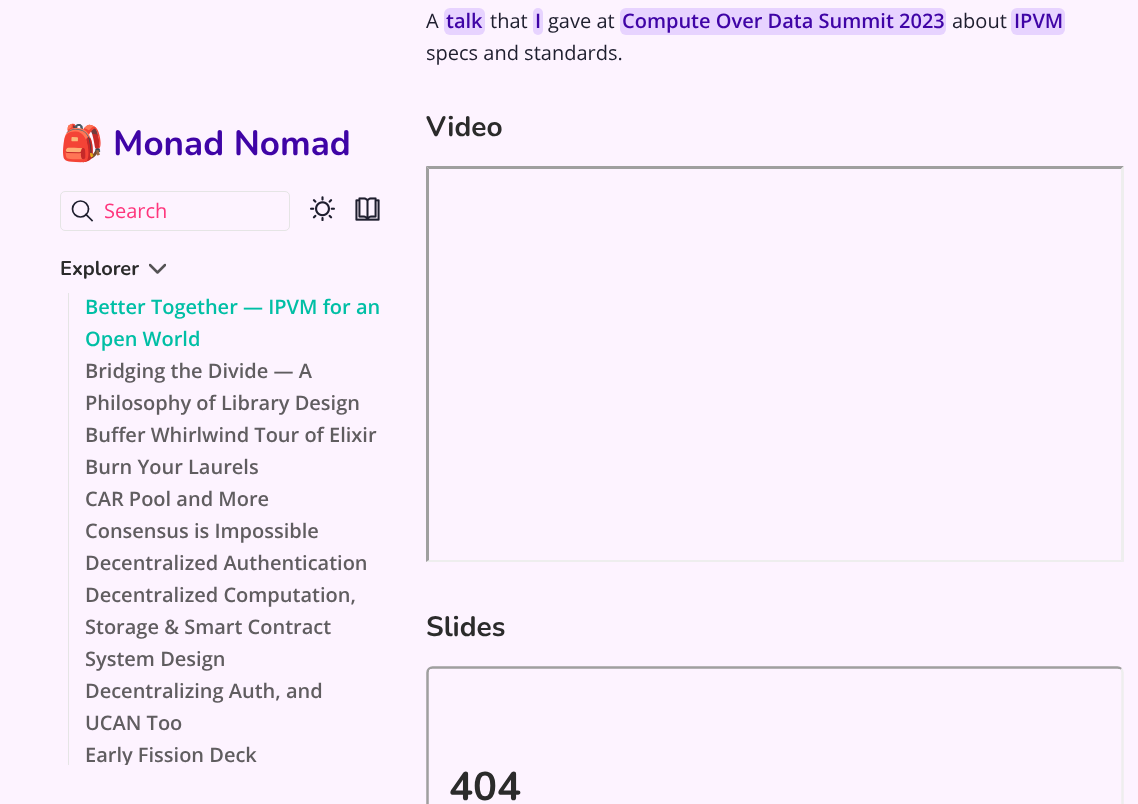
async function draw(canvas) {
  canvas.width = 1138;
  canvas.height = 804;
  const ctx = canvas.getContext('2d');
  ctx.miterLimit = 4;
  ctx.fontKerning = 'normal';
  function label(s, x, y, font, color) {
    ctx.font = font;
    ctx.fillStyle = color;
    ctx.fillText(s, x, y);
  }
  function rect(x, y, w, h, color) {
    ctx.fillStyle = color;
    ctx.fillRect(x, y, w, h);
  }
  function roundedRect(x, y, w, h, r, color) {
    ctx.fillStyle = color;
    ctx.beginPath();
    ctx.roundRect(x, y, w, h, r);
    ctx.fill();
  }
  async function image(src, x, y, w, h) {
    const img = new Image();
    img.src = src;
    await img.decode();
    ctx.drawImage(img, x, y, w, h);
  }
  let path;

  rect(0, 0, 1138, 804, '#fdf3ff');
  label('🎒', 60, 155, 'bold 35px Noto Color Emoji', '#3f04a6');
  label('Monad Nomad', 113, 155, 'bold 35px Nunito', '#3f04a6');
  ctx.beginPath();
  ctx.roundRect(60.5, 191.5, 229, 39, 4.5);
  ctx.strokeStyle = '#e5e5e5';
  ctx.stroke();
  path = new Path2D('M92 220.5L86 214.5');
  ctx.strokeStyle = '#1e1e2e';
  ctx.lineWidth = 1.7;
  ctx.lineCap = 'square';
  ctx.stroke(path);
  ctx.beginPath();
  ctx.arc(80.5, 209, 8, 0, 2 * Math.PI);
  ctx.stroke();
  label('Search', 104, 218, '20px Open Sans', '#fe357c');
  await image('assets/img1.png', 310, 196, 25, 25);
  await image('assets/img2.png', 355, 197, 25, 24);
  label('Explorer', 60, 275, 'bold 20px Nunito', '#2b2b2b');
  ctx.save();
  ctx.beginPath();
  ctx.rect(149, 260, 17, 18);
  ctx.clip();
  path = new Path2D('M150 265L157.5 272.5L165 265');
  ctx.strokeStyle = '#555355';
  ctx.lineWidth = 2.5;
  ctx.lineCap = 'round';
  ctx.lineJoin = 'round';
  ctx.stroke(path);
  ctx.restore();
  rect(68, 293, 1, 472, '#e5e5e5');
  label('Better Together — IPVM for an', 85, 314, '600 20px Open Sans', '#00bfa5');
  label('Open World', 85, 346, '600 20px Open Sans', '#00bfa5');
  label('Bridging the Divide — A', 85, 378, '600 20px Open Sans', '#605d60');
  label('Philosophy of Library Design', 85, 410, '600 20px Open Sans', '#605d60');
  label('Buffer Whirlwind Tour of Elixir', 85, 442, '600 20px Open Sans', '#605d60');
  label('Burn Your Laurels', 85, 474, '600 20px Open Sans', '#605d60');
  label('CAR Pool and More', 85, 506, '600 20px Open Sans', '#605d60');
  label('Consensus is Impossible', 85, 538, '600 20px Open Sans', '#605d60');
  label('Decentralized Authentication', 85, 570, '600 20px Open Sans', '#605d60');
  label('Decentralized Computation,', 85, 602, '600 20px Open Sans', '#605d60');
  label('Storage & Smart Contract', 85, 634, '600 20px Open Sans', '#605d60');
  label('System Design', 85, 666, '600 20px Open Sans', '#605d60');
  label('Decentralizing Auth, and', 85, 698, '600 20px Open Sans', '#605d60');
  label('UCAN Too', 85, 730, '600 20px Open Sans', '#605d60');
  ctx.save();
  ctx.beginPath();
  ctx.rect(69, 293, 311, 472);
  ctx.clip();
  label('Early Fission Deck', 85, 762, '600 20px Open Sans', '#605d60');
  ctx.restore();
  label('A', 426, 28, '20px Open Sans', '#1e1e2e');
  roundedRect(444, 8, 41, 27, 6, '#e7d3ff');
  label('talk', 446, 28, '600 20px Open Sans', '#3f04a6');
  label('that', 490, 28, '20px Open Sans', '#1e1e2e');
  roundedRect(533, 8, 10, 27, 5, '#e7d3ff');
  label('I', 535, 28, '600 20px Open Sans', '#3f04a6');
  label('gave at', 548, 28, '20px Open Sans', '#1e1e2e');
  roundedRect(620, 8, 326, 27, 6, '#e7d3ff');
  label('Compute Over Data Summit 2023', 622, 28, '600 20px Open Sans', '#3f04a6');
  label('about', 952, 28, '20px Open Sans', '#1e1e2e');
  roundedRect(1011, 8, 54, 27, 6, '#e7d3ff');
  label('IPVM', 1014, 28, '600 20px Open Sans', '#3f04a6');
  label('specs and standards.', 426, 60, '20px Open Sans', '#1e1e2e');
  label('Video', 426, 136, 'bold 28px Nunito', '#2b2b2b');
  ctx.fillStyle = '#9f9f9f';
  path = new Path2D('M426 166H1124L1121 169H429Z');
  ctx.fill(path);
  ctx.fillStyle = '#eee';
  path = new Path2D('M1124 166V562L1121 560V169Z');
  ctx.fill(path);
  path = new Path2D('M1124 562H426L429 560H1121Z');
  ctx.fill(path);
  ctx.fillStyle = '#9f9f9f';
  path = new Path2D('M426 562V166L429 169V560Z');
  ctx.fill(path);
  label('Slides', 426, 636, 'bold 28px Nunito', '#2b2b2b');
  path = new Path2D('M1121 669C1122 670 1122.5 671 1122.5 672.5V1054C1122.5 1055 1122 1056.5 1121 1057.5C1120 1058 1119 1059 1117.5 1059H432.5C431 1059 430 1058 429 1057.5');
  ctx.strokeStyle = '#eee';
  ctx.lineWidth = 2.5;
  ctx.lineCap = 'butt';
  ctx.stroke(path);
  path = new Path2D('M429 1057.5C428 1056.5 427.5 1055 427.5 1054V672.5C427.5 671 428 670 429 669C430 668 431 667.5 432.5 667.5H1117.5C1119 667.5 1120 668 1121 669');
  ctx.strokeStyle = '#9f9f9f';
  ctx.stroke(path);
  await image('assets/img3.png', 429, 669, 692, 132);
}

draw(document.querySelector('canvas'));
